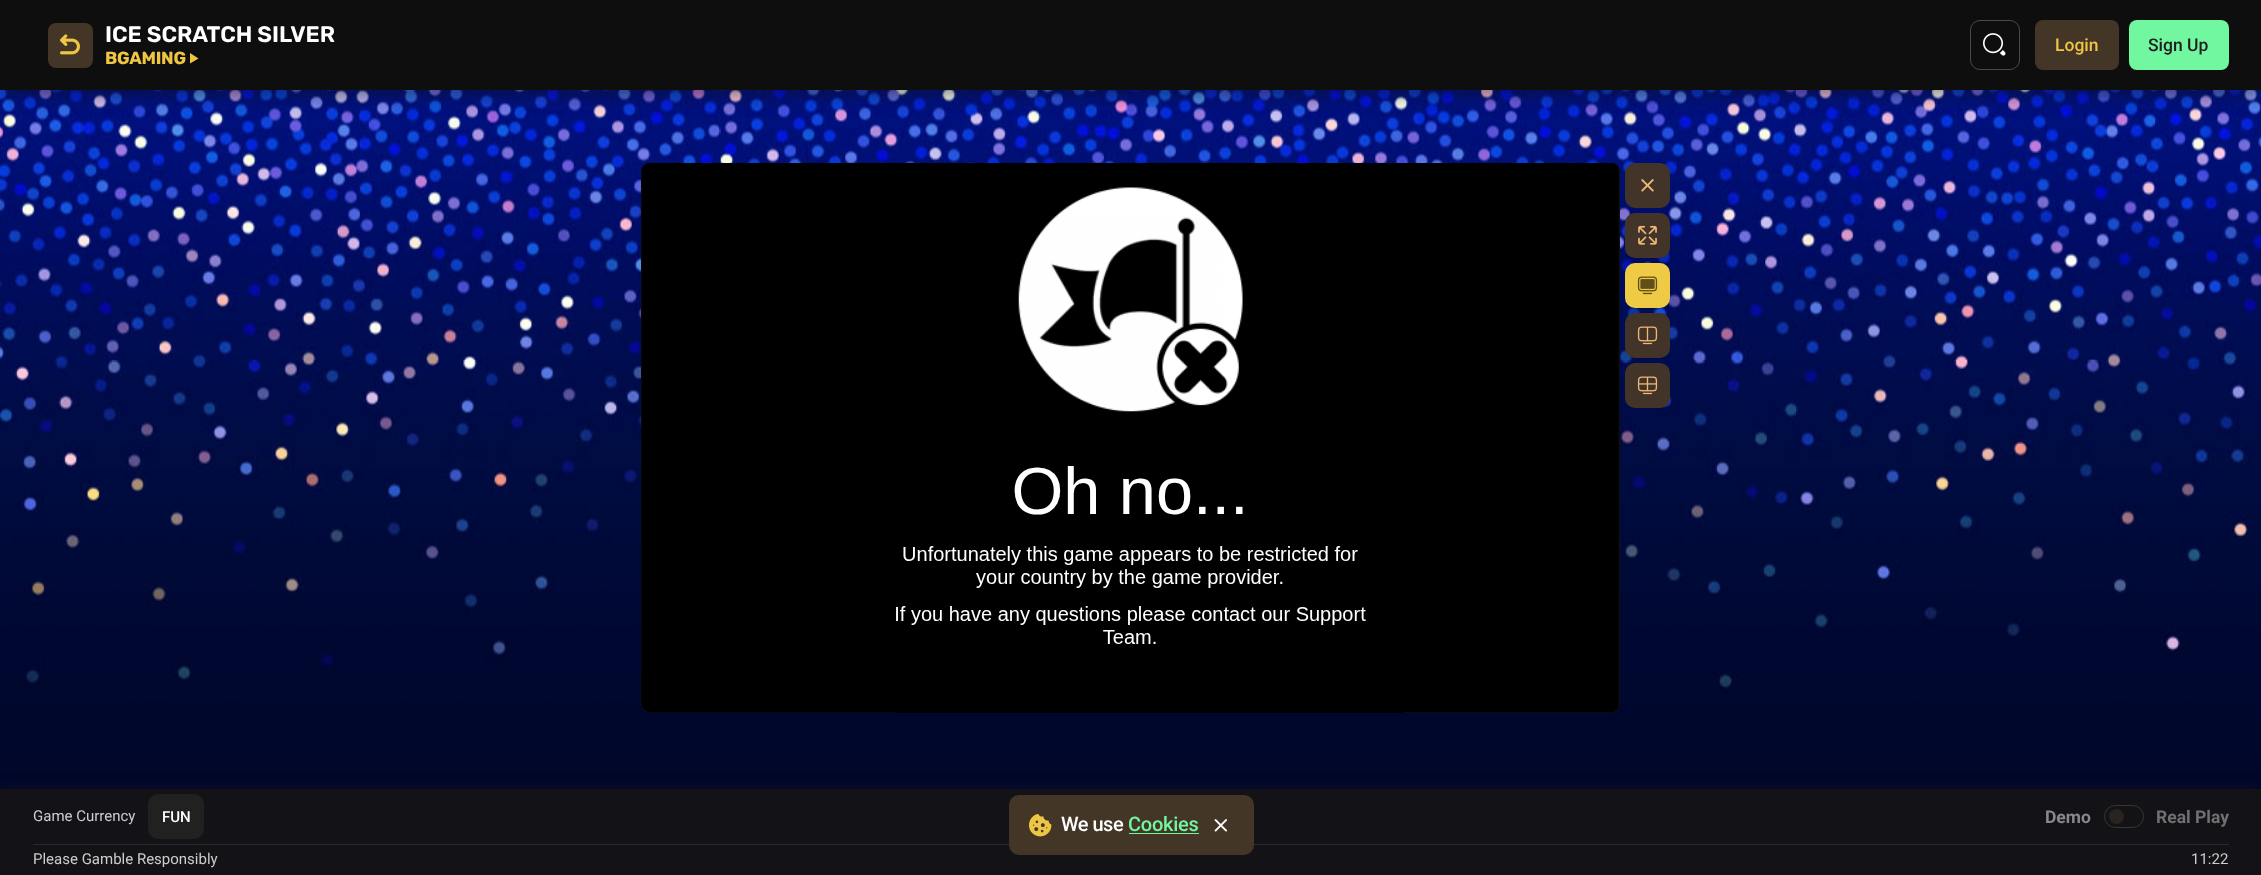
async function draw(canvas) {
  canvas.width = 2261;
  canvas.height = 875;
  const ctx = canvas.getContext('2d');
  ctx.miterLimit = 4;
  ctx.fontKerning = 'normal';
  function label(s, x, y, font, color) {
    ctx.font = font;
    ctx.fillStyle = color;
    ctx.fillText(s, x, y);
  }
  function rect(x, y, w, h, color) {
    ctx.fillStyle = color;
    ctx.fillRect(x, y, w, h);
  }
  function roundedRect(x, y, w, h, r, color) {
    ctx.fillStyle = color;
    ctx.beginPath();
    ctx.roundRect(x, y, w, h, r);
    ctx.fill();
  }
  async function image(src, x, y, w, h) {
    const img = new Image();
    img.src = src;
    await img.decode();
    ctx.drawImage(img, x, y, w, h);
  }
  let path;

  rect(0, 0, 2261, 875, '#fff');
  await image('assets/img3.png', 0, 90, 2261, 699);
  ctx.fillStyle = '#0d0d0d80';
  ctx.filter = 'blur(9.5px)';
  ctx.beginPath();
  ctx.rect(0, 5, 2261, 90);
  ctx.fill();
  ctx.filter = 'none';
  rect(0, 0, 2261, 90, '#0e0e0e');
  roundedRect(48, 23, 45, 45, 8, '#433626');
  await image('assets/img1.png', 60, 34, 20, 21);
  label('ICE SCRATCH SILVER', 105, 42, '600 22.5px Rubik', '#fff');
  ctx.letterSpacing = '-0.25px';
  label('BGAMING', 105, 64, '300 17.5px Rubik', '#efc644');
  path = new Path2D('M198.5 58.5L190 63.5V53Z');
  ctx.fill(path);
  ctx.beginPath();
  ctx.roundRect(1970.5, 20.5, 49, 49, 9.5);
  ctx.strokeStyle = '#4b4a48';
  ctx.stroke();
  await image('assets/img2.png', 1983, 33, 23, 23);
  roundedRect(2035, 20, 84, 50, 8, '#433626');
  ctx.letterSpacing = '0px';
  label('Login', 2055, 51, '500 17.5px Roboto', '#efc644');
  roundedRect(2129, 20, 100, 50, 8, '#71f79f');
  label('Sign Up', 2148, 51, '500 17.5px Roboto', '#202020');
  roundedRect(641, 163, 979, 550, 8, '#0e0e0e');
  roundedRect(641, 163, 979, 550, 10, '#0e0e0e');
  await image('assets/img4.png', 641, 163, 978, 550);
  roundedRect(1625, 163, 45, 45, 10, '#423429');
  await image('assets/img5.png', 1641, 179, 13, 13);
  roundedRect(1625, 213, 45, 45, 10, '#423429');
  await image('assets/img6.png', 1638, 225, 19, 20);
  roundedRect(1625, 263, 45, 45, 10, '#efca44');
  await image('assets/img7.png', 1637, 276, 21, 19);
  roundedRect(1625, 313, 45, 45, 10, '#423429');
  await image('assets/img8.png', 1637, 326, 21, 19);
  roundedRect(1625, 363, 45, 45, 10, '#423429');
  await image('assets/img9.png', 1637, 376, 21, 19);
  ctx.fillStyle = '#171a274d';
  ctx.filter = 'blur(6px)';
  ctx.beginPath();
  ctx.rect(0, 784, 2261, 86);
  ctx.fill();
  ctx.filter = 'none';
  rect(0, 789, 2261, 86, '#131317');
  label('Game Currency', 33, 821, '15px Roboto', '#cecccc');
  roundedRect(148, 794, 56, 45, 10, '#212121');
  label('FUN', 162, 822, '500 15px Roboto', '#fff');
  label('Demo', 2045, 823, 'bold 17.5px Roboto', '#89898b');
  ctx.beginPath();
  ctx.roundRect(2104.5, 805.5, 39, 22, 11);
  ctx.strokeStyle = '#3e342a';
  ctx.stroke();
  ctx.fillStyle = '#292421';
  ctx.beginPath();
  ctx.arc(2116.5, 816.5, 7.5, 0, 2 * Math.PI);
  ctx.fill();
  label('Real Play', 2156, 823, 'bold 17.5px Roboto', '#717072');
  rect(33, 844, 2196, 1, '#2c2a28');
  label('Please Gamble Responsibly', 33, 864, '15px Roboto', '#cecccc');
  label('11:22', 2191, 864, '15px Roboto', '#cecccc');
  roundedRect(1009, 795, 245, 60, 10, '#433626');
  await image('assets/img10.png', 1029, 813, 23, 24);
  ctx.letterSpacing = '-0.5px';
  label('We use', 1061, 831, '500 20px Roboto', '#fff');
  ctx.letterSpacing = '-0.25px';
  label('Cookies', 1128, 831, '500 20px Roboto', '#71f79f');
  rect(1129, 833, 70, 1, '#71f79f');
  await image('assets/img11.png', 1214, 819, 13, 13);
}

draw(document.querySelector('canvas'));
